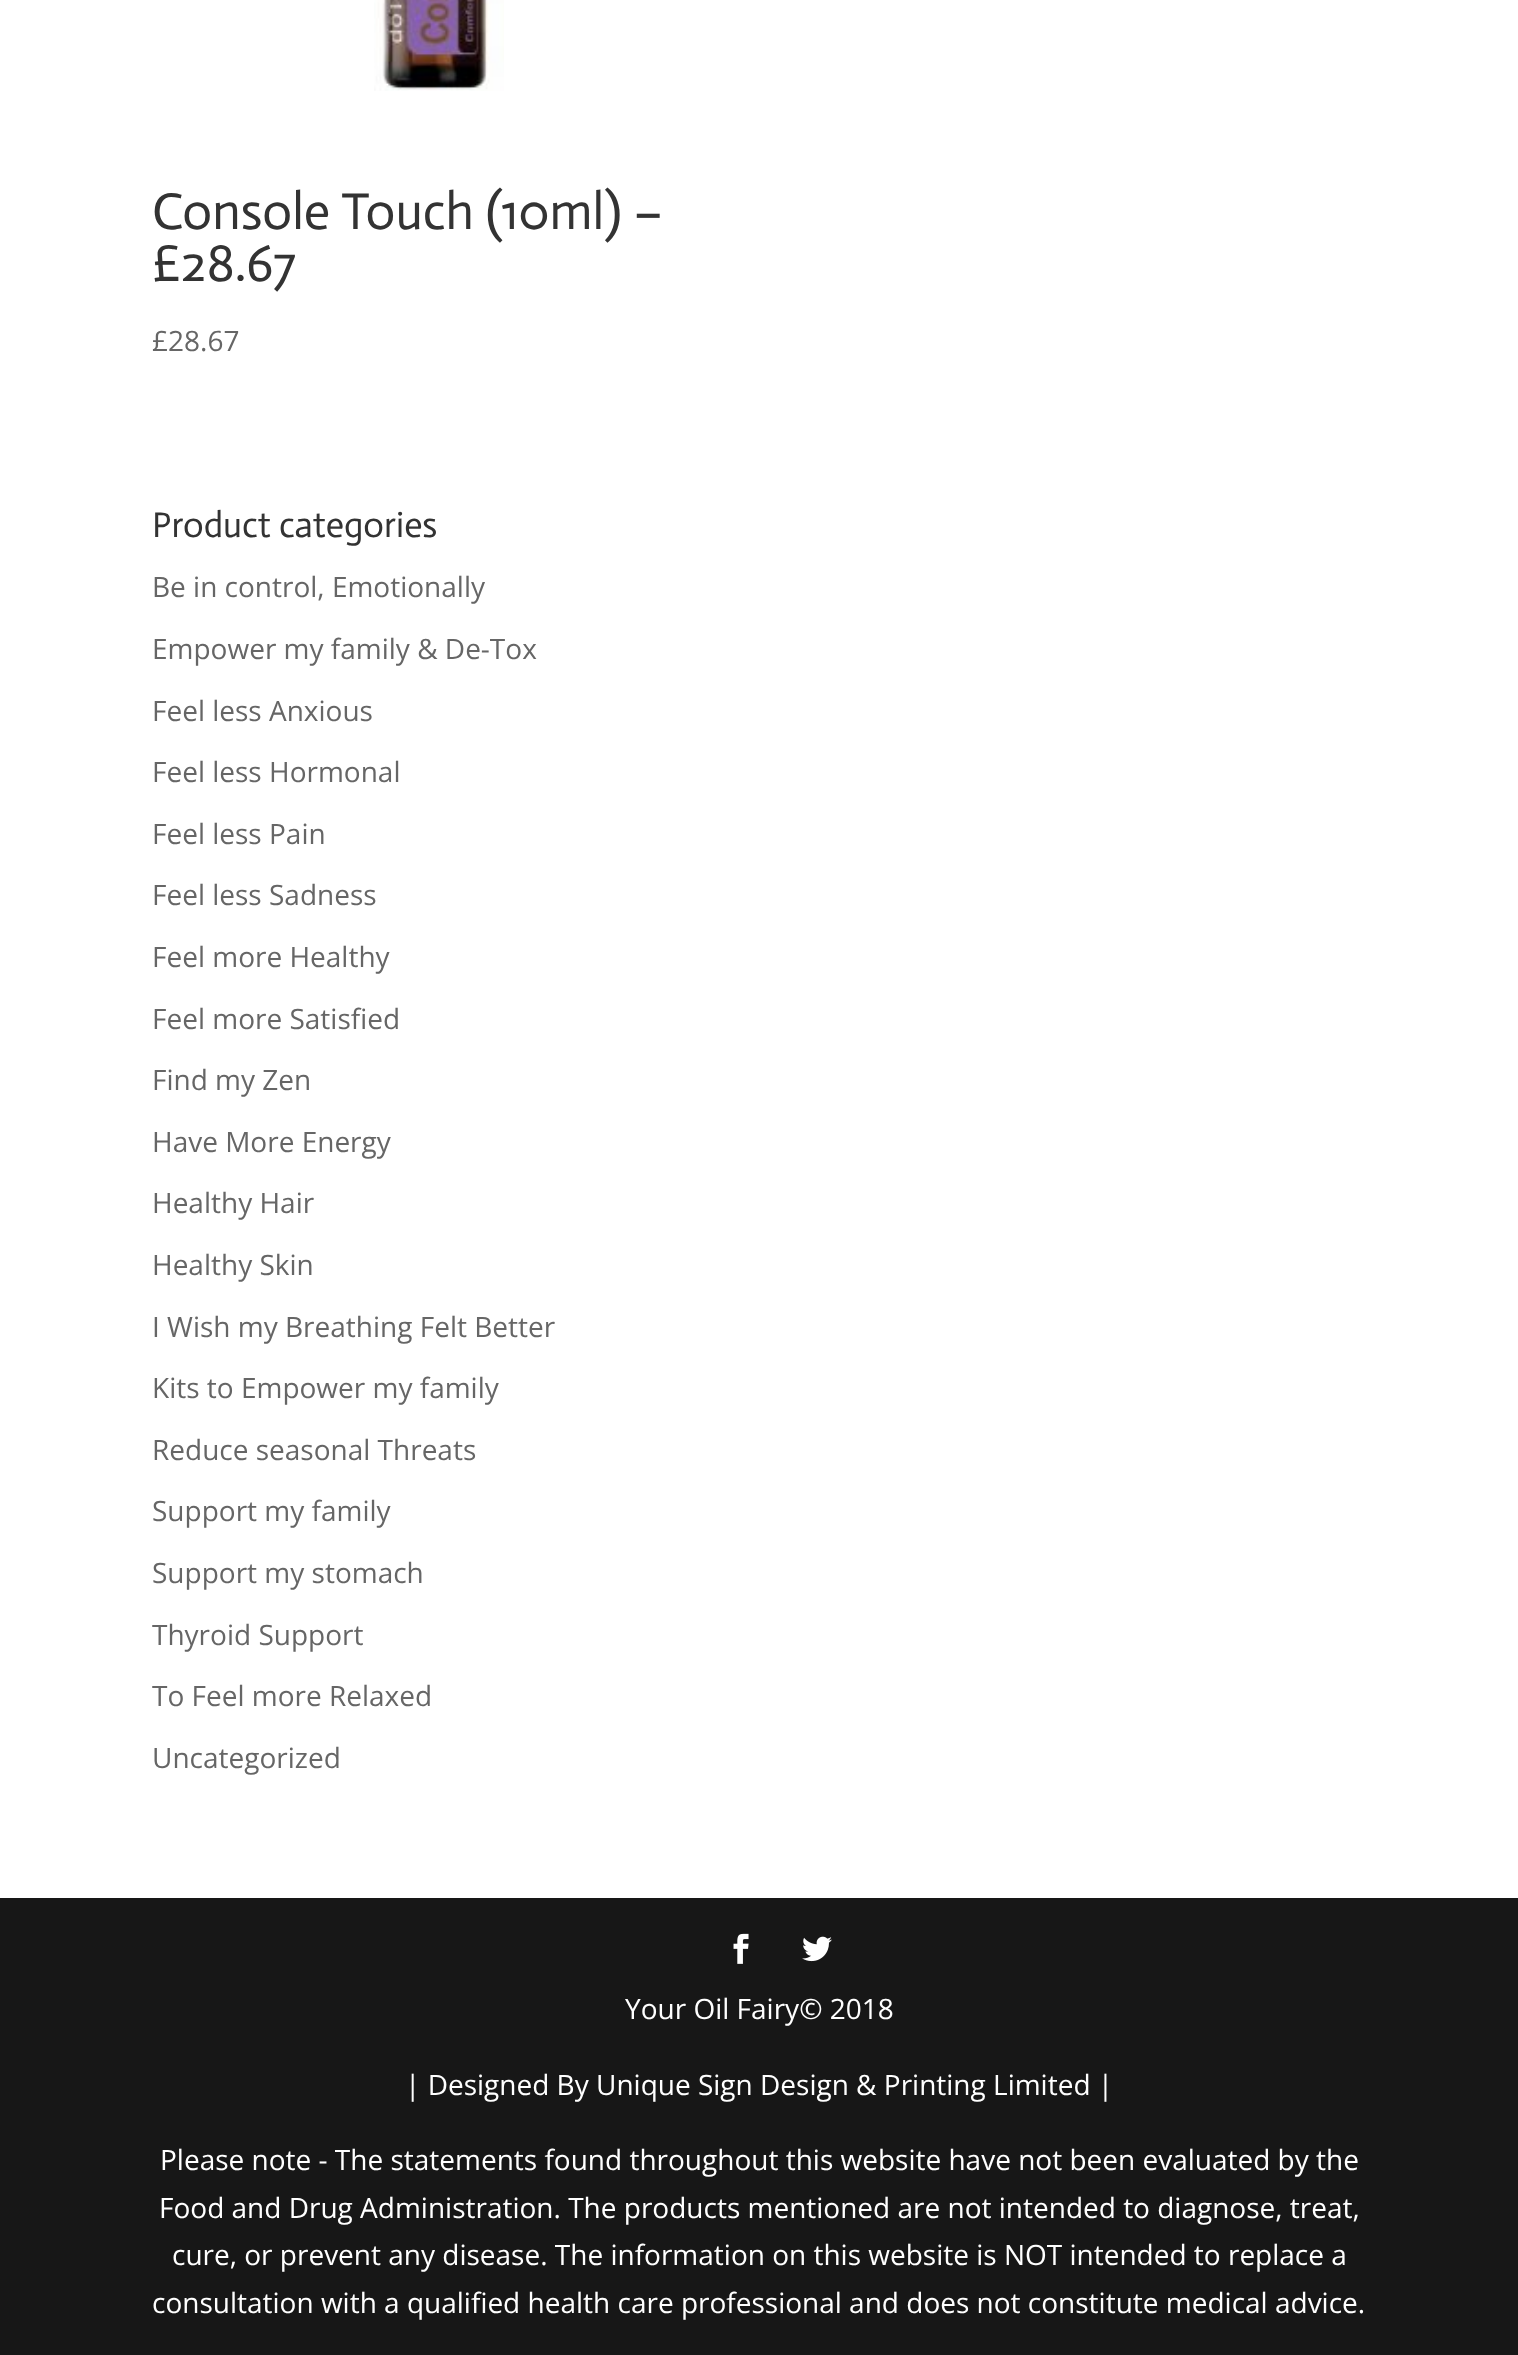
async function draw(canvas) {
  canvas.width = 1518;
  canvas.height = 2355;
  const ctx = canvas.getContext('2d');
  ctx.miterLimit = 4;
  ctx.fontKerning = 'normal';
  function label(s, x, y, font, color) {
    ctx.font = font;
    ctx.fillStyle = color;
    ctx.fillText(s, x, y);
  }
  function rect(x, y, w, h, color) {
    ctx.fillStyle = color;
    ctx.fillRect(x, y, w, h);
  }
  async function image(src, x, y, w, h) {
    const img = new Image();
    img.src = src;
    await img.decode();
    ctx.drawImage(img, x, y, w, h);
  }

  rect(0, 0, 1518, 2355, '#fff');
  await image('assets/img1.png', 374, 0, 130, 91);
  label('Console Touch (10ml) –', 152, 229, '52px Actor', '#333');
  label('£28.67', 152, 281, '52px Actor', '#333');
  label('£28.67', 152, 351, '28px Open Sans', '#666');
  label('Product categories', 152, 537, '36px Actor', '#333');
  label('Be in control, Emotionally', 152, 597, '28px Open Sans', '#666');
  label('Empower my family & De-Tox', 152, 659, '28px Open Sans', '#666');
  label('Feel less Anxious', 152, 721, '28px Open Sans', '#666');
  label('Feel less Hormonal', 152, 782, '28px Open Sans', '#666');
  label('Feel less Pain', 152, 844, '28px Open Sans', '#666');
  label('Feel less Sadness', 152, 905, '28px Open Sans', '#666');
  label('Feel more Healthy', 152, 967, '28px Open Sans', '#666');
  label('Feel more Satisfied', 152, 1029, '28px Open Sans', '#666');
  label('Find my Zen', 152, 1090, '28px Open Sans', '#666');
  label('Have More Energy', 152, 1152, '28px Open Sans', '#666');
  label('Healthy Hair', 152, 1213, '28px Open Sans', '#666');
  label('Healthy Skin', 152, 1275, '28px Open Sans', '#666');
  label('I Wish my Breathing Felt Better', 152, 1337, '28px Open Sans', '#666');
  label('Kits to Empower my family', 152, 1398, '28px Open Sans', '#666');
  label('Reduce seasonal Threats', 152, 1460, '28px Open Sans', '#666');
  label('Support my family', 152, 1521, '28px Open Sans', '#666');
  label('Support my stomach', 152, 1583, '28px Open Sans', '#666');
  label('Thyroid Support', 152, 1645, '28px Open Sans', '#666');
  label('To Feel more Relaxed', 152, 1706, '28px Open Sans', '#666');
  label('Uncategorized', 152, 1768, '28px Open Sans', '#666');
  rect(0, 1898, 1518, 457, '#171717');
  await image('assets/img2.png', 733, 1933, 16, 31);
  await image('assets/img3.png', 802, 1936, 30, 26);
  label('Your Oil Fairy© 2018', 625, 2019, '28px Open Sans', '#fff');
  label('| Designed By Unique Sign Design & Printing Limited |', 405, 2095, '28px Open Sans', '#fff');
  label('Please note - The statements found throughout this website have not been evaluated by the', 160, 2170, '28px Open Sans', '#fff');
  label('Food and Drug Administration. The products mentioned are not intended to diagnose, treat,', 159, 2218, '28px Open Sans', '#fff');
  label('cure, or prevent any disease. The information on this website is NOT intended to replace a', 172, 2265, '28px Open Sans', '#fff');
  label('consultation with a qualified health care professional and does not constitute medical advice.', 152, 2313, '28px Open Sans', '#fff');
}

draw(document.querySelector('canvas'));
